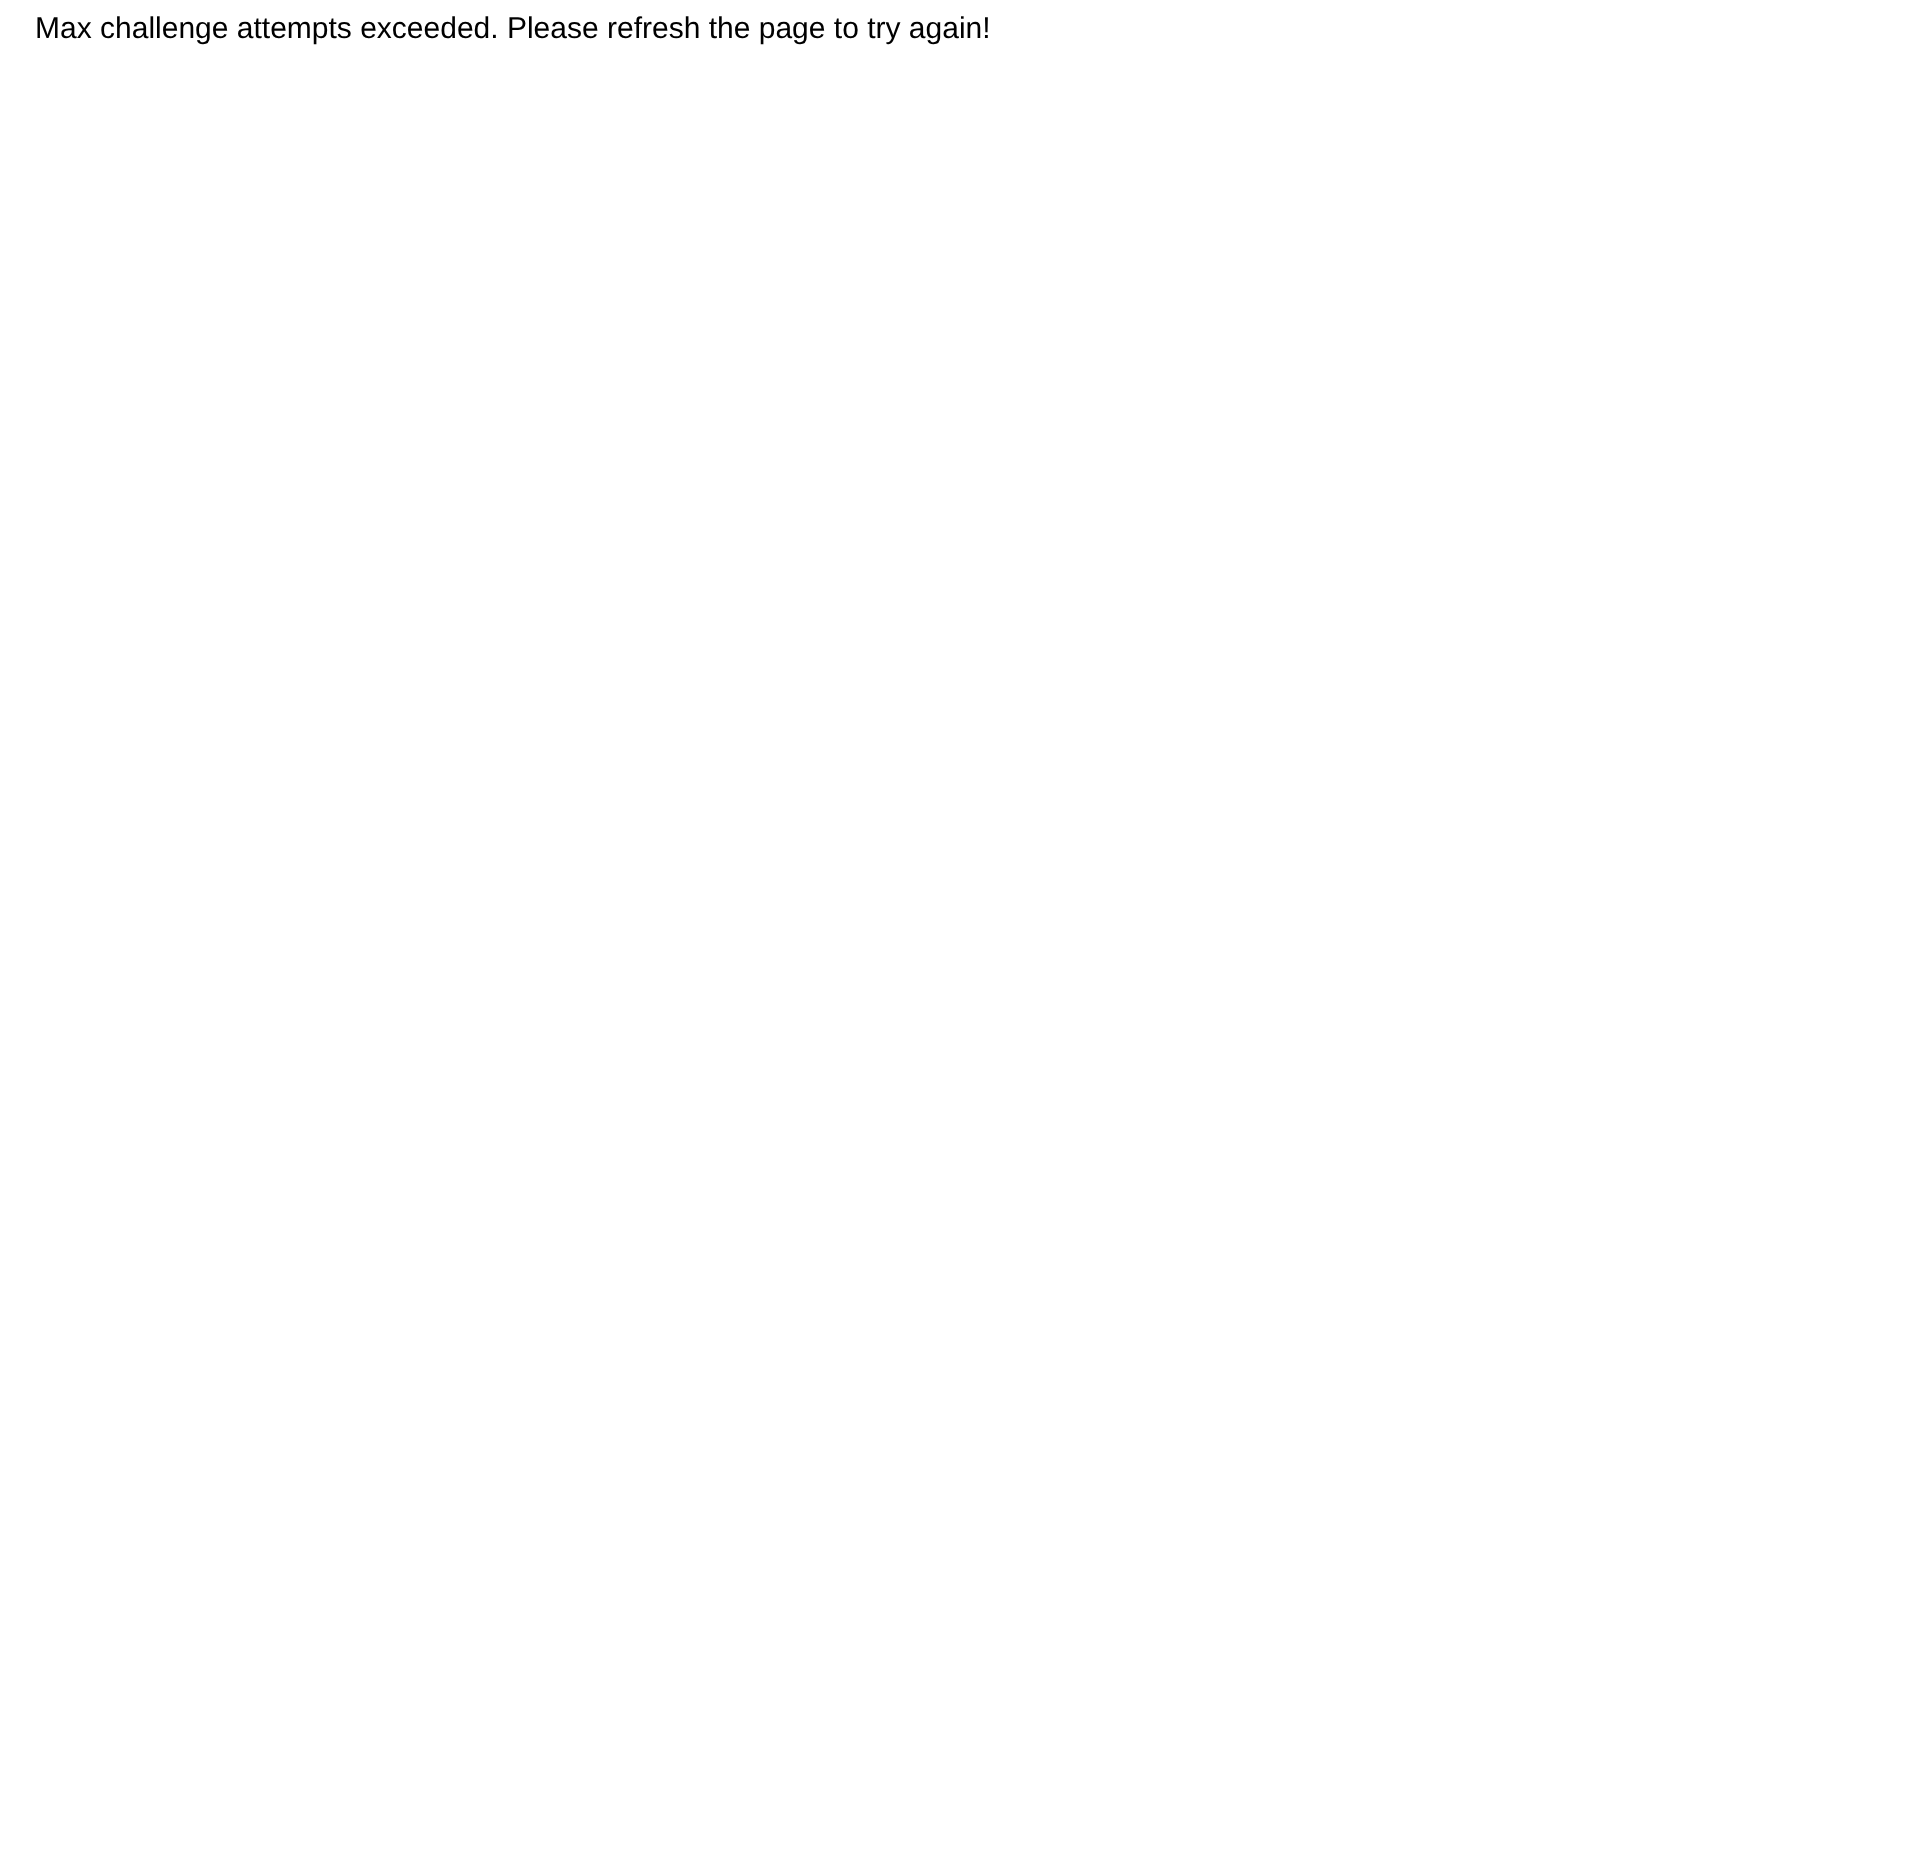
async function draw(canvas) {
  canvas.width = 1909;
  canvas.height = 1870;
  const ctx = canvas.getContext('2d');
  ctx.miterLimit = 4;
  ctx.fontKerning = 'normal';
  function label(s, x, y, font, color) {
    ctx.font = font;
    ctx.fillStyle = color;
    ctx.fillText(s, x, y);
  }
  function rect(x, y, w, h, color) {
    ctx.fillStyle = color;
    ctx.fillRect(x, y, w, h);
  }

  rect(0, 0, 1909, 1870, '#fff');
  label('Max challenge attempts exceeded. Please refresh the page to try again!', 35, 38, '30px Liberation Sans', '#000');
}

draw(document.querySelector('canvas'));
